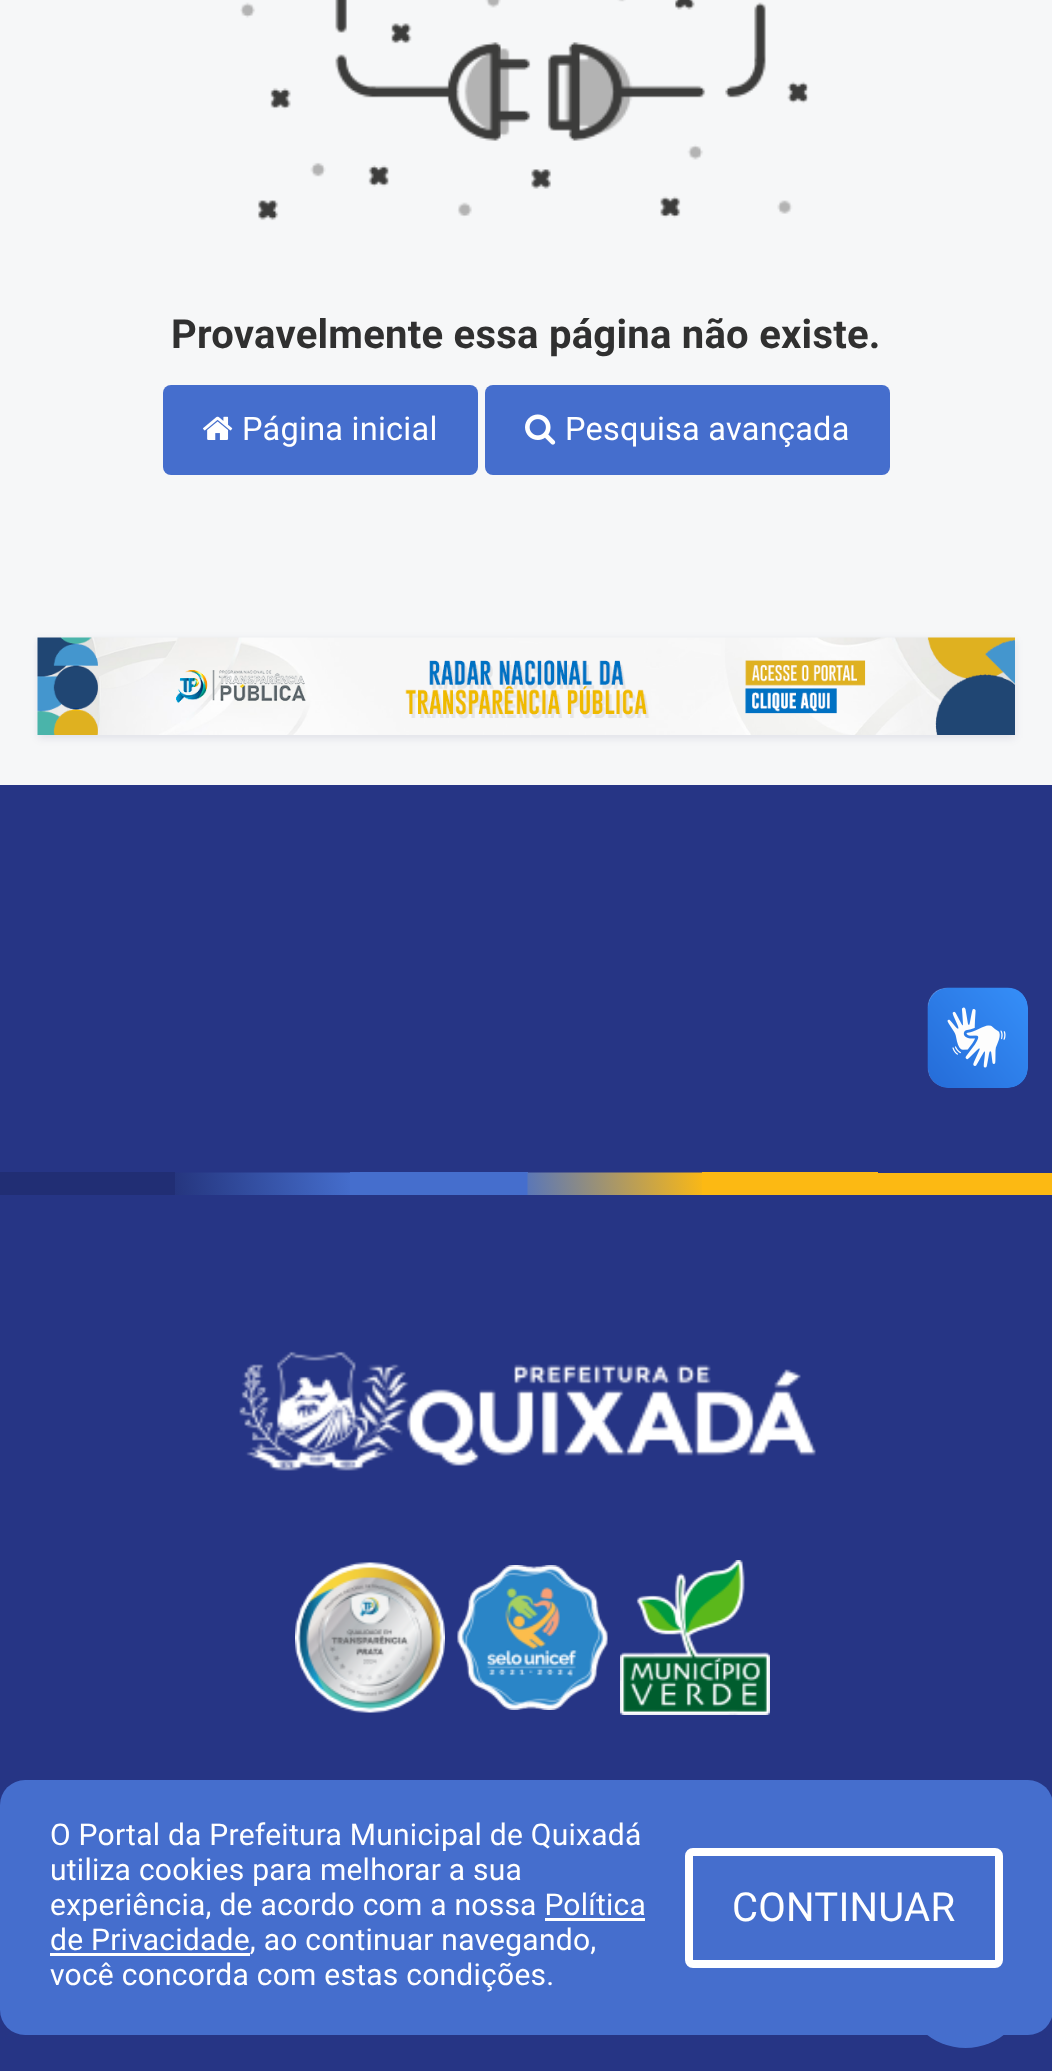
async function draw(canvas) {
  canvas.width = 1052;
  canvas.height = 2071;
  const ctx = canvas.getContext('2d');
  ctx.miterLimit = 4;
  ctx.fontKerning = 'normal';
  function label(s, x, y, font, color) {
    ctx.font = font;
    ctx.fillStyle = color;
    ctx.fillText(s, x, y);
  }
  function rect(x, y, w, h, color) {
    ctx.fillStyle = color;
    ctx.fillRect(x, y, w, h);
  }
  function roundedRect(x, y, w, h, r, color) {
    ctx.fillStyle = color;
    ctx.beginPath();
    ctx.roundRect(x, y, w, h, r);
    ctx.fill();
  }
  async function image(src, x, y, w, h) {
    const img = new Image();
    img.src = src;
    await img.decode();
    ctx.drawImage(img, x, y, w, h);
  }

  rect(0, 0, 1052, 2071, '#f6f7f8');
  await image('assets/img1.png', 240, 0, 569, 221);
  ctx.letterSpacing = '0.25px';
  label('Provavelmente essa página não existe.', 171, 348, 'bold 40px Roboto', '#303030');
  roundedRect(163, 385, 315, 90, 8, '#456ecd');
  await image('assets/img2.png', 203, 416, 30, 24);
  label('Página inicial', 242, 440, '32.5px Roboto', '#fff');
  roundedRect(485, 385, 405, 90, 8, '#456ecd');
  await image('assets/img3.png', 525, 414, 31, 31);
  label('Pesquisa avançada', 565, 440, '32.5px Roboto', '#fff');
  ctx.fillStyle = '#03004717';
  ctx.filter = 'blur(4px)';
  ctx.beginPath();
  ctx.rect(38, 640, 977, 98);
  ctx.fill();
  ctx.filter = 'none';
  await image('assets/img4.png', 37, 637, 978, 98);
  rect(0, 785, 1052, 1286, '#263585');
  rect(0, 1172, 175, 23, '#212e74');
  await image('assets/img5.png', 175, 1172, 175, 23);
  rect(350, 1172, 178, 23, '#456ecd');
  await image('assets/img6.png', 527, 1172, 175, 23);
  rect(702, 1172, 176, 23, '#fcb913');
  rect(878, 1173, 174, 22, '#fcb913');
  await image('assets/img7.png', 239, 1351, 577, 120);
  await image('assets/img8.png', 295, 1562, 150, 151);
  await image('assets/img9.png', 457, 1565, 151, 145);
  await image('assets/img10.png', 620, 1560, 150, 155);
  await image('assets/img11.png', 927, 987, 101, 101);
  await image('assets/img12.png', 928, 988, 100, 100);
  ctx.fillStyle = '#456ecd';
  ctx.beginPath();
  ctx.arc(965.5, 1985.5, 62.5, 0, 2 * Math.PI);
  ctx.fill();
  roundedRect(0, 1780, 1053, 255, 25, '#456ecd');
  label('O Portal da Prefeitura Municipal de Quixadá', 50, 1845, '30px Roboto', '#fff');
  label('utiliza cookies para melhorar a sua', 50, 1880, '30px Roboto', '#fff');
  label('experiência, de acordo com a nossa Política', 50, 1915, '30px Roboto', '#fff');
  rect(50, 1953, 200, 3, '#fff');
  label('de Privacidade, ao continuar navegando,', 50, 1950, '30px Roboto', '#fff');
  rect(545, 1918, 100, 3, '#fff');
  label('você concorda com estas condições.', 50, 1985, '30px Roboto', '#fff');
  ctx.beginPath();
  ctx.roundRect(689, 1852, 310, 112, 4);
  ctx.strokeStyle = '#fff';
  ctx.lineWidth = 8;
  ctx.stroke();
  label('CONTINUAR', 732, 1921, '40px Roboto', '#fff');
}

draw(document.querySelector('canvas'));
